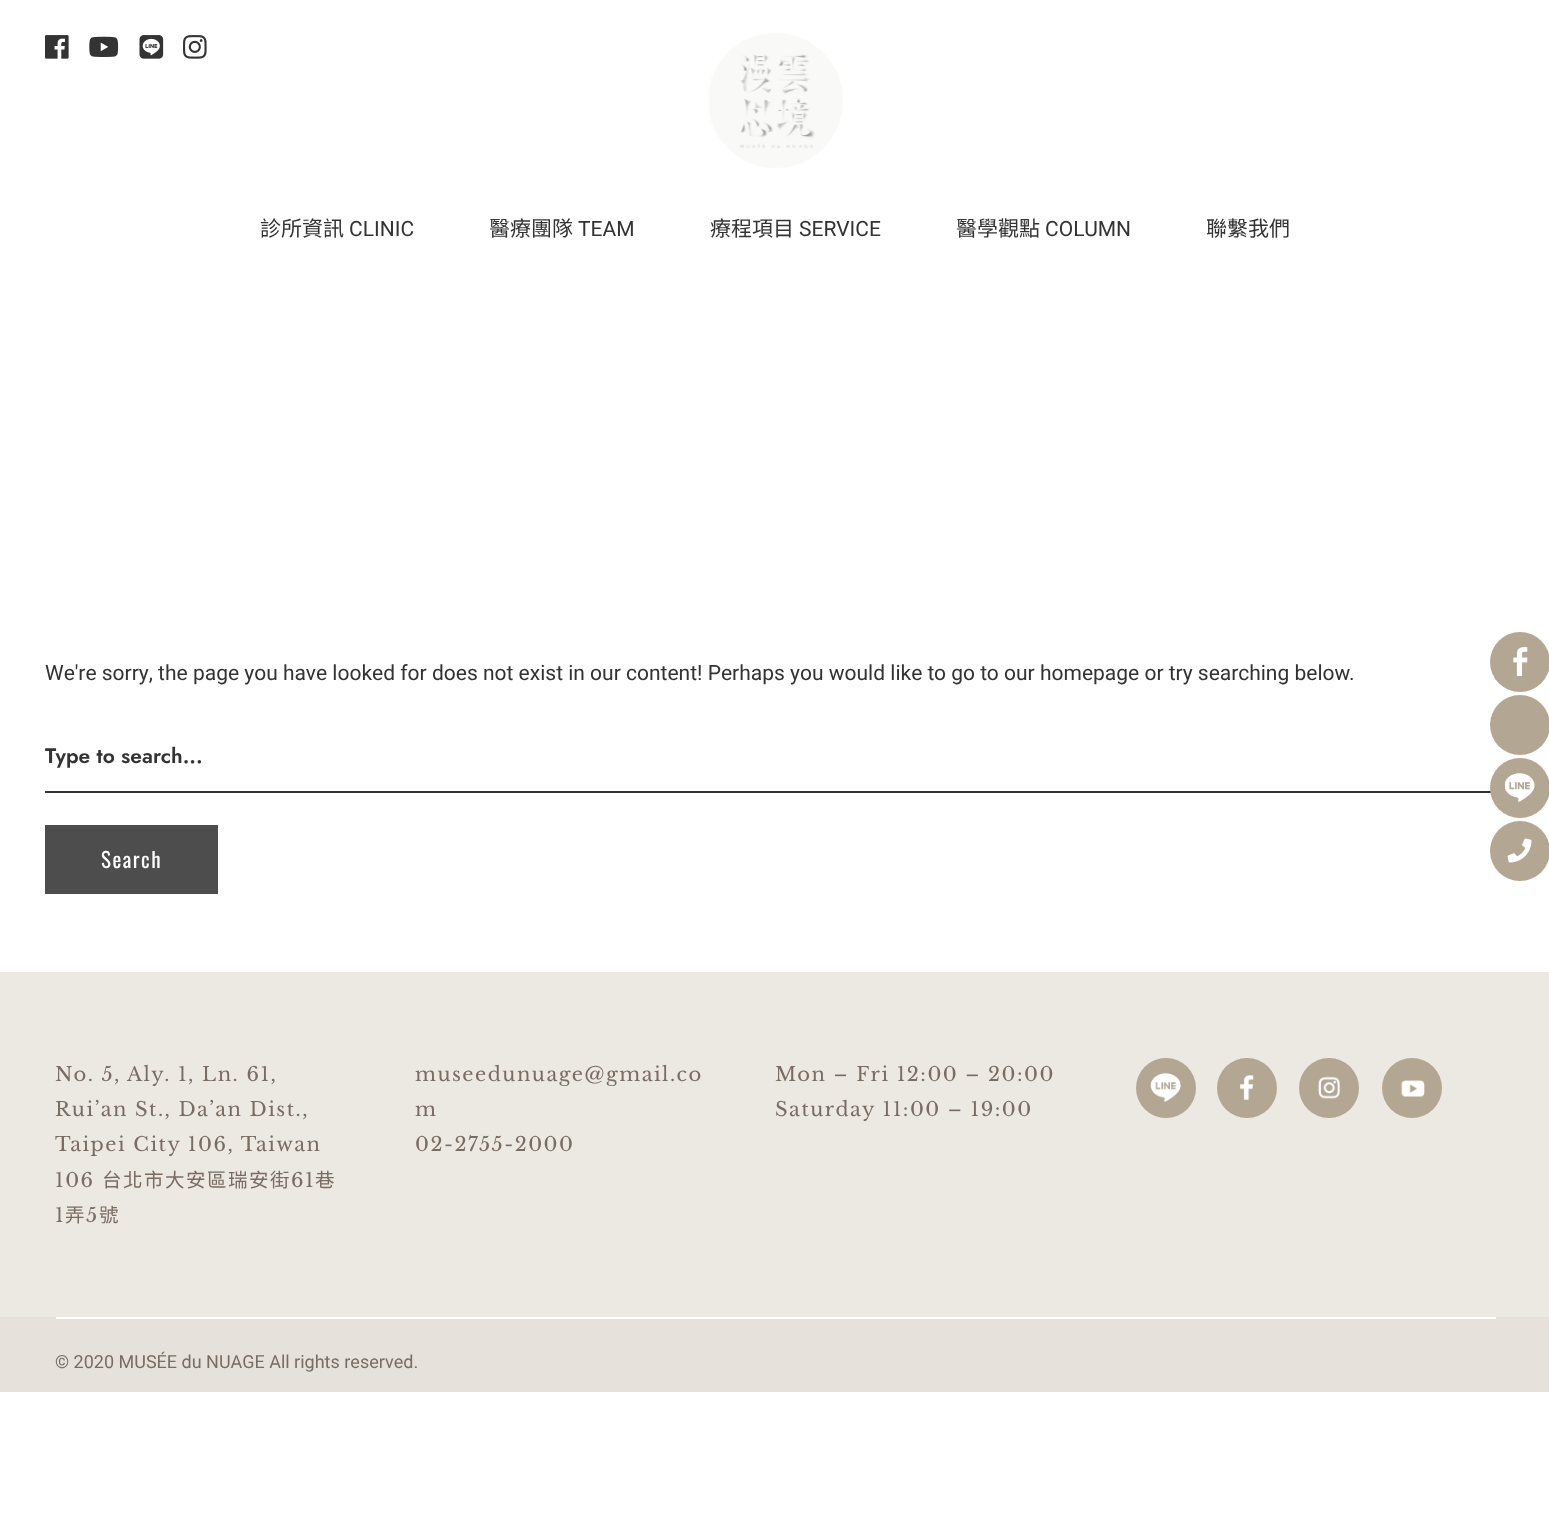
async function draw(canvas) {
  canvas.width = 1549;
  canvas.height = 1513;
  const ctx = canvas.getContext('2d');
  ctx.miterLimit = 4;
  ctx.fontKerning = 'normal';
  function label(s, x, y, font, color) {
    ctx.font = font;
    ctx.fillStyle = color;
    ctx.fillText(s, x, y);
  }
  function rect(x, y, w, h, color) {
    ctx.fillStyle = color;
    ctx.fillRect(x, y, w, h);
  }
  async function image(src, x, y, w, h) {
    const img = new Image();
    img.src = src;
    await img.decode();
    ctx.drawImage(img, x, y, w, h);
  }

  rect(0, 0, 1549, 1513, '#fff');
  await image('assets/img1.png', 45, 35, 24, 24);
  await image('assets/img2.png', 89, 36, 30, 21);
  await image('assets/img3.png', 139, 35, 25, 24);
  await image('assets/img4.png', 183, 35, 24, 24);
  await image('assets/img5.png', 708, 33, 135, 135);
  label('診所資訊', 260, 236, '21px Noto Sans CJK TC', '#333');
  label('CLINIC', 349, 236, '21px Heebo', '#333');
  label('醫療團隊', 489, 236, '21px Noto Sans CJK TC', '#333');
  label('TEAM', 578, 236, '21px Heebo', '#333');
  label('療程項目', 710, 236, '21px Noto Sans CJK TC', '#333');
  label('SERVICE', 799, 236, '21px Heebo', '#333');
  label('醫學觀點', 956, 236, '21px Noto Sans CJK TC', '#333');
  label('COLUMN', 1045, 236, '21px Heebo', '#333');
  label('聯繫我們', 1206, 236, '21px Noto Sans CJK TC', '#333');
  label('We\'re sorry, the page you have looked for does not exist in our content! Perhaps you would like to go to our homepage or try searching below.', 45, 680, '21px Heebo', '#333');
  rect(45, 791, 1446, 2, '#333');
  label('Type to search...', 45, 763, '600 21px Jost', '#333');
  rect(45, 825, 173, 69, '#4d4d4d');
  ctx.letterSpacing = '1.5px';
  label('Search', 101, 868, '21px Oswald', '#fff');
  rect(0, 972, 1549, 345, '#ece8e2');
  label('No. 5, Aly. 1, Ln. 61,', 55, 1081, '19.5px Libre Baskerville', '#796d63');
  label('Rui’an St., Da’an Dist.,', 55, 1116, '19.5px Libre Baskerville', '#796d63');
  label('Taipei City 106, Taiwan', 55, 1151, '19.5px Libre Baskerville', '#796d63');
  label('106', 55, 1187, '19.5px Libre Baskerville', '#796d63');
  label('台北市大安區瑞安街', 102, 1187, '19.5px Noto Sans CJK TC', '#796d63');
  label('61', 291, 1187, '19.5px Libre Baskerville', '#796d63');
  label('巷', 315, 1187, '19.5px Noto Sans CJK TC', '#796d63');
  label('1', 55, 1222, '19.5px Libre Baskerville', '#796d63');
  label('弄', 65, 1222, '19.5px Noto Sans CJK TC', '#796d63');
  label('5', 86, 1222, '19.5px Libre Baskerville', '#796d63');
  label('號', 99, 1222, '19.5px Noto Sans CJK TC', '#796d63');
  label('museedunuage@gmail.co', 415, 1081, '19.5px Libre Baskerville', '#796d63');
  label('m', 415, 1116, '19.5px Libre Baskerville', '#796d63');
  label('02-2755-2000', 415, 1151, '19.5px Libre Baskerville', '#796d63');
  label('Mon – Fri 12:00 – 20:00', 775, 1081, '19.5px Libre Baskerville', '#796d63');
  label('Saturday 11:00 – 19:00', 775, 1116, '19.5px Libre Baskerville', '#796d63');
  ctx.fillStyle = '#b3a693';
  ctx.beginPath();
  ctx.arc(1166, 1088, 30, 0, 2 * Math.PI);
  ctx.fill();
  ctx.beginPath();
  ctx.arc(1247, 1088, 30, 0, 2 * Math.PI);
  ctx.fill();
  ctx.beginPath();
  ctx.arc(1329, 1088, 30, 0, 2 * Math.PI);
  ctx.fill();
  ctx.beginPath();
  ctx.arc(1412, 1088, 30, 0, 2 * Math.PI);
  ctx.fill();
  await image('assets/img6.png', 1150, 1073, 31, 29);
  await image('assets/img7.png', 1240, 1075, 14, 25);
  await image('assets/img8.png', 1318, 1076, 22, 23);
  await image('assets/img9.png', 1401, 1080, 24, 17);
  rect(0, 1317, 1549, 75, '#e6e2db');
  rect(56, 1317, 1440, 2, '#fff');
  ctx.letterSpacing = '0px';
  label('© 2020 MUSÉE du NUAGE All rights reserved.', 55, 1368, '18px Heebo', '#796d63');
  ctx.fillStyle = '#b3a693';
  ctx.beginPath();
  ctx.arc(1520, 662, 30, 0, 2 * Math.PI);
  ctx.fill();
  await image('assets/img10.png', 1513, 647, 15, 29);
  ctx.beginPath();
  ctx.arc(1520, 725, 30, 0, 2 * Math.PI);
  ctx.fill();
  ctx.beginPath();
  ctx.arc(1520, 788, 30, 0, 2 * Math.PI);
  ctx.fill();
  await image('assets/img11.png', 1505, 773, 30, 29);
  ctx.beginPath();
  ctx.arc(1520, 851, 30, 0, 2 * Math.PI);
  ctx.fill();
  await image('assets/img12.png', 1507, 838, 25, 25);
}

draw(document.querySelector('canvas'));
